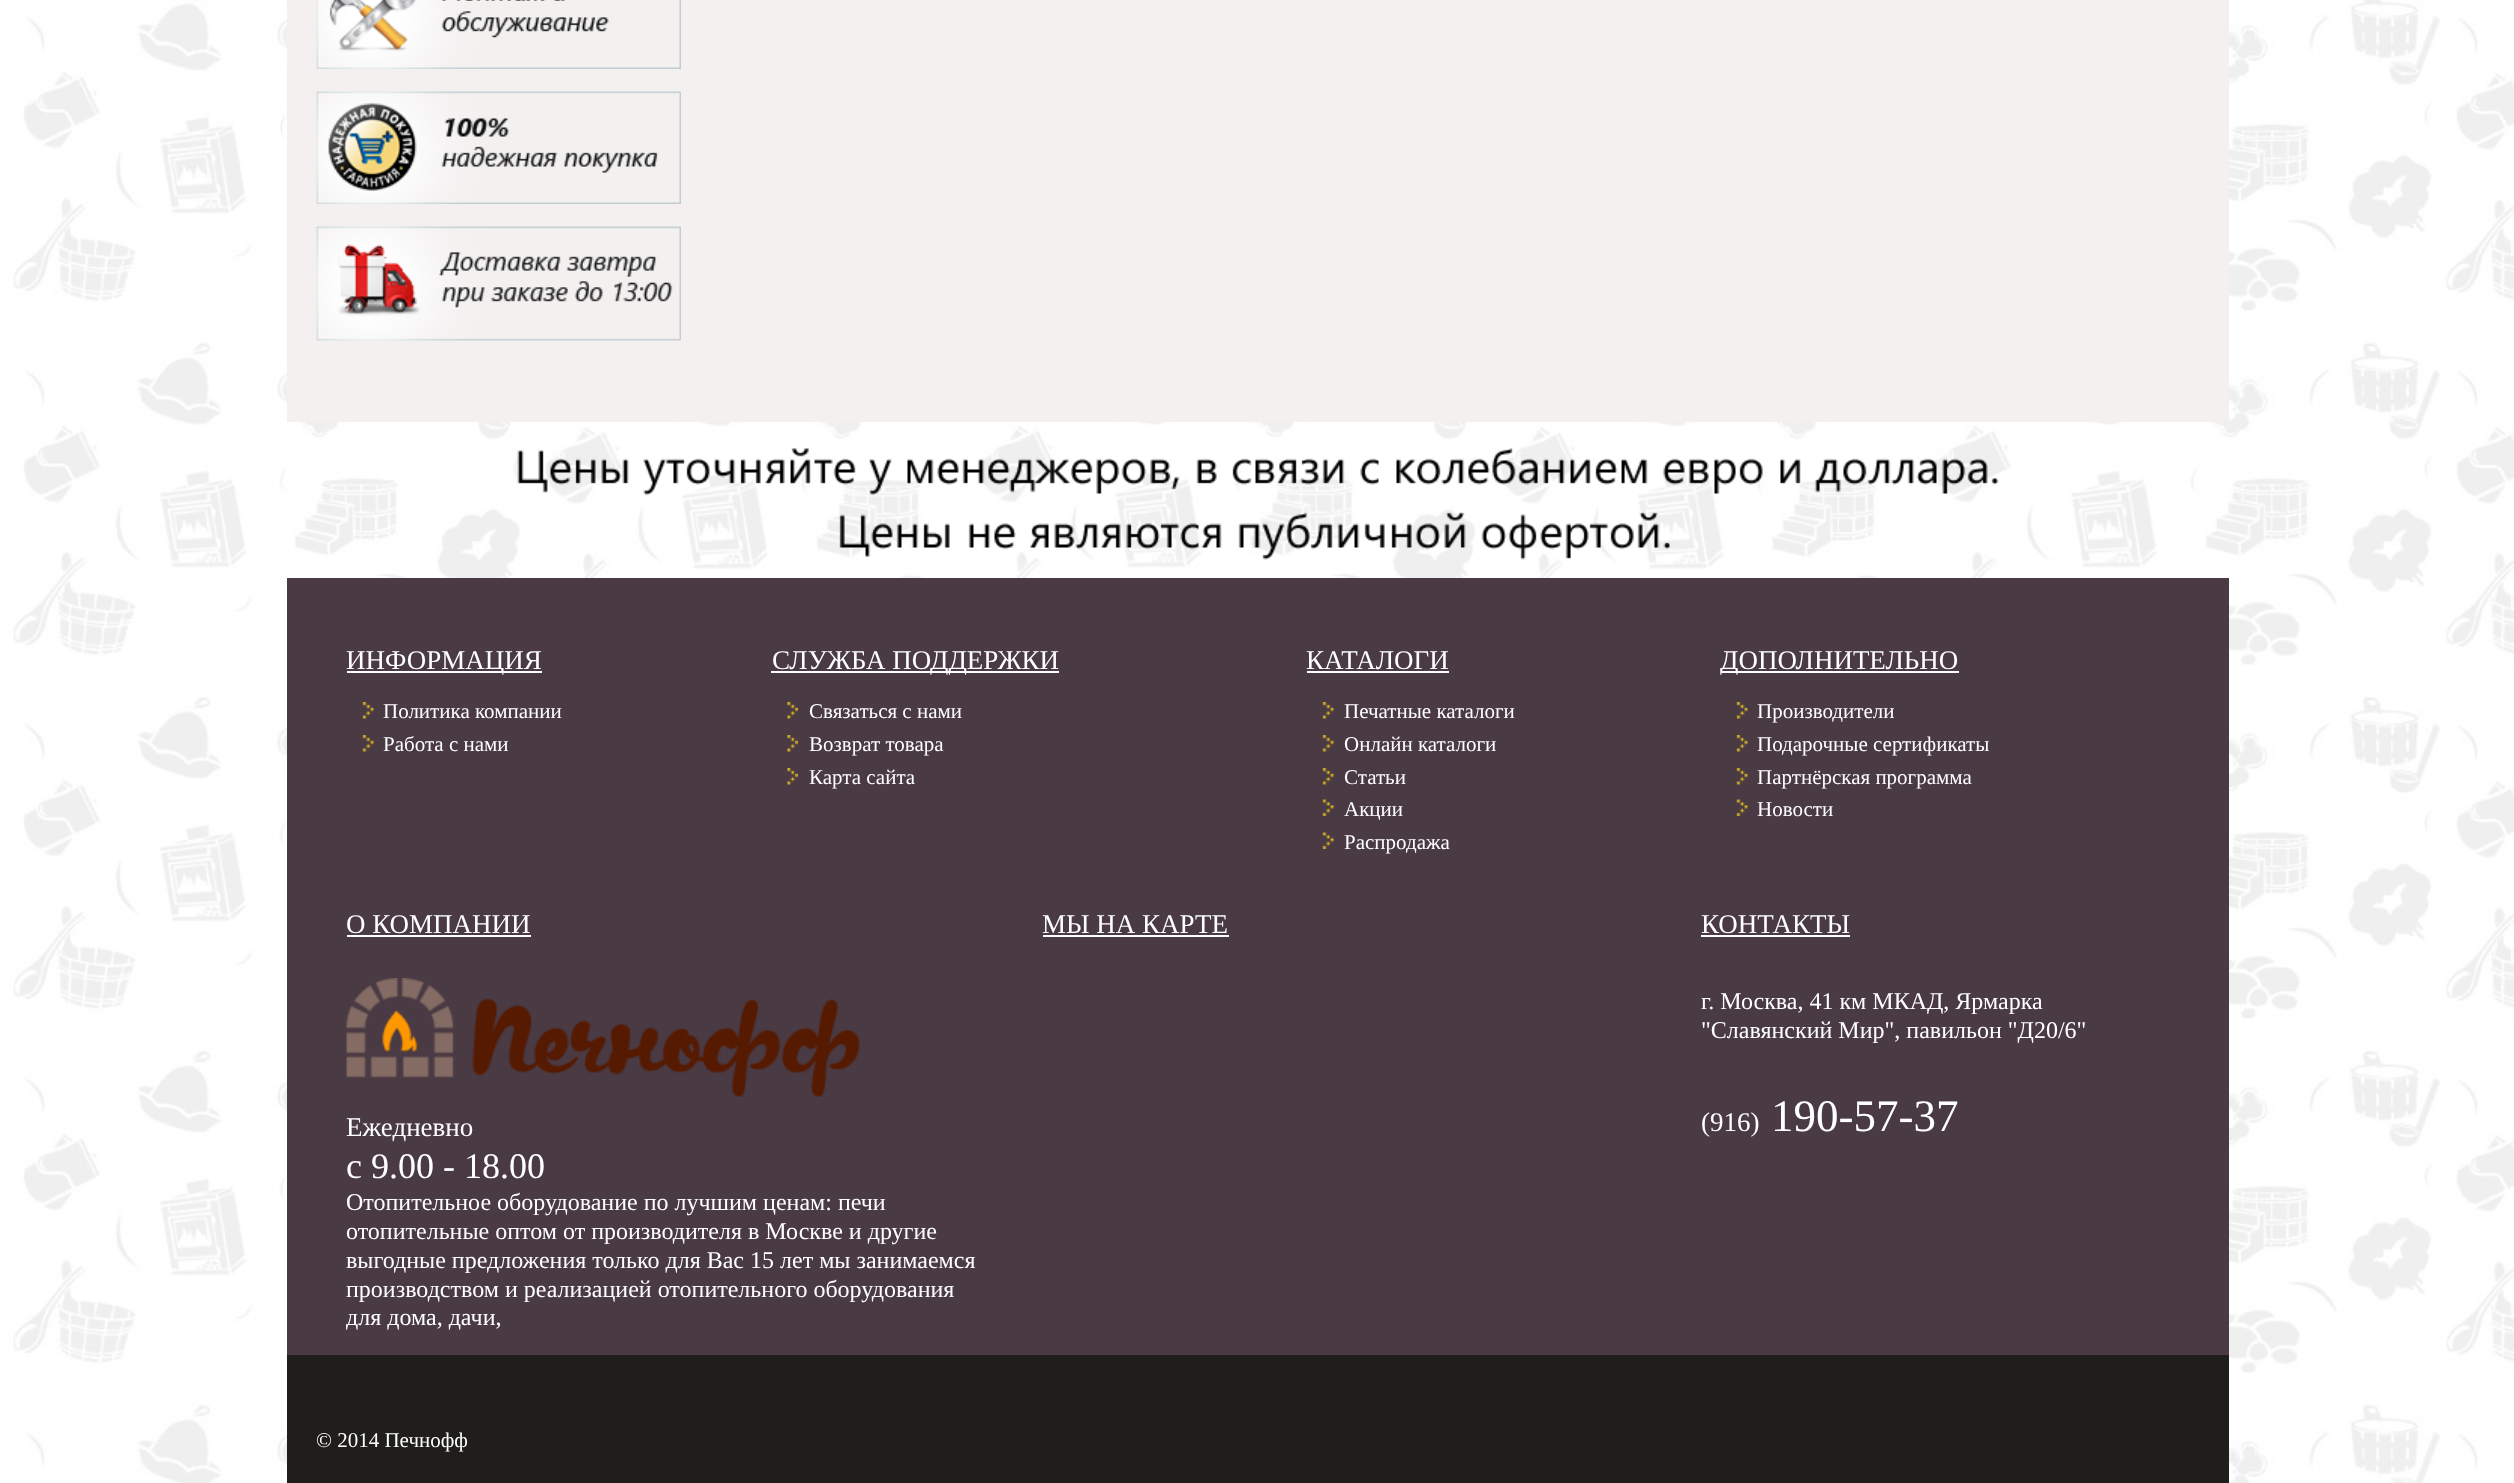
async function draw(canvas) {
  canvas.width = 2514;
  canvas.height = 1483;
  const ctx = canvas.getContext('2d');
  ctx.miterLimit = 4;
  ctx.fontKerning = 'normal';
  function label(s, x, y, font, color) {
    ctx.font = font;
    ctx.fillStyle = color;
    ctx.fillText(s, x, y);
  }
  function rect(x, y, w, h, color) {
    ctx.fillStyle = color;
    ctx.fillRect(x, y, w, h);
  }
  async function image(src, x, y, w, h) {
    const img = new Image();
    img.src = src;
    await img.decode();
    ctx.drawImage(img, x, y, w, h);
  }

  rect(0, 0, 2514, 1483, '#fff');
  await image('assets/img1.png', 0, 0, 2514, 1483);
  rect(287, 0, 1942, 422, '#f4f0ef');
  await image('assets/img2.png', 316, 0, 365, 69);
  await image('assets/img3.png', 316, 91, 365, 113);
  await image('assets/img4.png', 316, 226, 365, 115);
  await image('assets/img5.png', 517, 448, 1482, 112);
  rect(287, 578, 1942, 777, '#4a3a43');
  rect(347, 671, 195, 2, '#fff');
  label('ИНФОРМАЦИЯ', 346, 669, '27px Liberation Serif', '#fff');
  await image('assets/img6.png', 362, 702, 12, 17);
  label('Политика компании', 383, 718, '21px Liberation Serif', '#fff');
  await image('assets/img6.png', 362, 735, 12, 17);
  label('Работа с нами', 383, 751, '21px Liberation Serif', '#fff');
  rect(771, 671, 288, 2, '#fff');
  label('СЛУЖБА ПОДДЕРЖКИ', 772, 669, '27px Liberation Serif', '#fff');
  await image('assets/img7.png', 787, 702, 11, 17);
  label('Связаться с нами', 809, 718, '21px Liberation Serif', '#fff');
  await image('assets/img7.png', 787, 735, 11, 17);
  label('Возврат товара', 809, 751, '21px Liberation Serif', '#fff');
  await image('assets/img7.png', 787, 768, 11, 17);
  label('Карта сайта', 809, 784, '21px Liberation Serif', '#fff');
  label('КАТАЛОГИ', 1306, 669, '27px Liberation Serif', '#fff');
  rect(1307, 671, 142, 2, '#fff');
  await image('assets/img6.png', 1322, 702, 12, 17);
  label('Печатные каталоги', 1344, 718, '21px Liberation Serif', '#fff');
  await image('assets/img6.png', 1322, 735, 12, 17);
  label('Онлайн каталоги', 1344, 751, '21px Liberation Serif', '#fff');
  await image('assets/img6.png', 1322, 768, 12, 17);
  label('Статьи', 1344, 784, '21px Liberation Serif', '#fff');
  await image('assets/img8.png', 1322, 799, 12, 17);
  label('Акции', 1344, 816, '21px Liberation Serif', '#fff');
  await image('assets/img8.png', 1322, 832, 12, 17);
  label('Распродажа', 1344, 849, '21px Liberation Serif', '#fff');
  rect(1721, 671, 238, 2, '#fff');
  label('ДОПОЛНИТЕЛЬНО', 1720, 669, '27px Liberation Serif', '#fff');
  await image('assets/img9.png', 1736, 702, 12, 17);
  label('Производители', 1757, 718, '21px Liberation Serif', '#fff');
  await image('assets/img9.png', 1736, 735, 12, 17);
  label('Подарочные сертификаты', 1757, 751, '21px Liberation Serif', '#fff');
  await image('assets/img9.png', 1736, 768, 12, 17);
  label('Партнёрская программа', 1757, 784, '21px Liberation Serif', '#fff');
  await image('assets/img10.png', 1736, 799, 12, 17);
  label('Новости', 1757, 816, '21px Liberation Serif', '#fff');
  label('О КОМПАНИИ', 346, 933, '27px Liberation Serif', '#fff');
  rect(347, 935, 184, 2, '#fff');
  await image('assets/img11.png', 346, 978, 514, 119);
  label('Ежедневно', 346, 1136, '27px Liberation Serif', '#fff');
  label('с 9.00 - 18.00', 346, 1178, '36px Liberation Serif', '#fff');
  label('Отопительное оборудование по лучшим ценам: печи', 346, 1210, '24px Liberation Serif', '#fff');
  label('отопительные оптом от производителя в Москве и другие', 346, 1239, '24px Liberation Serif', '#fff');
  label('выгодные предложения только для Вас 15 лет мы занимаемся', 346, 1268, '24px Liberation Serif', '#fff');
  label('производством и реализацией отопительного оборудования', 346, 1297, '24px Liberation Serif', '#fff');
  label('для дома, дачи,', 346, 1325, '24px Liberation Serif', '#fff');
  label('МЫ НА КАРТЕ', 1042, 933, '27px Liberation Serif', '#fff');
  rect(1043, 935, 186, 2, '#fff');
  label('КОНТАКТЫ', 1701, 933, '27px Liberation Serif', '#fff');
  rect(1701, 935, 149, 2, '#fff');
  label('г. Москва, 41 км МКАД, Ярмарка', 1701, 1009, '24px Liberation Serif', '#fff');
  label('"Славянский Мир", павильон "Д20/6"', 1701, 1038, '24px Liberation Serif', '#fff');
  label('(916)', 1701, 1131, '27px Liberation Serif', '#fff');
  label('190-57-37', 1771, 1131, '45px Liberation Serif', '#fff');
  rect(287, 1355, 1942, 128, '#1f1e1b');
  label('© 2014 Печнофф', 316, 1447, '21px Liberation Serif', '#fff');
}

draw(document.querySelector('canvas'));
